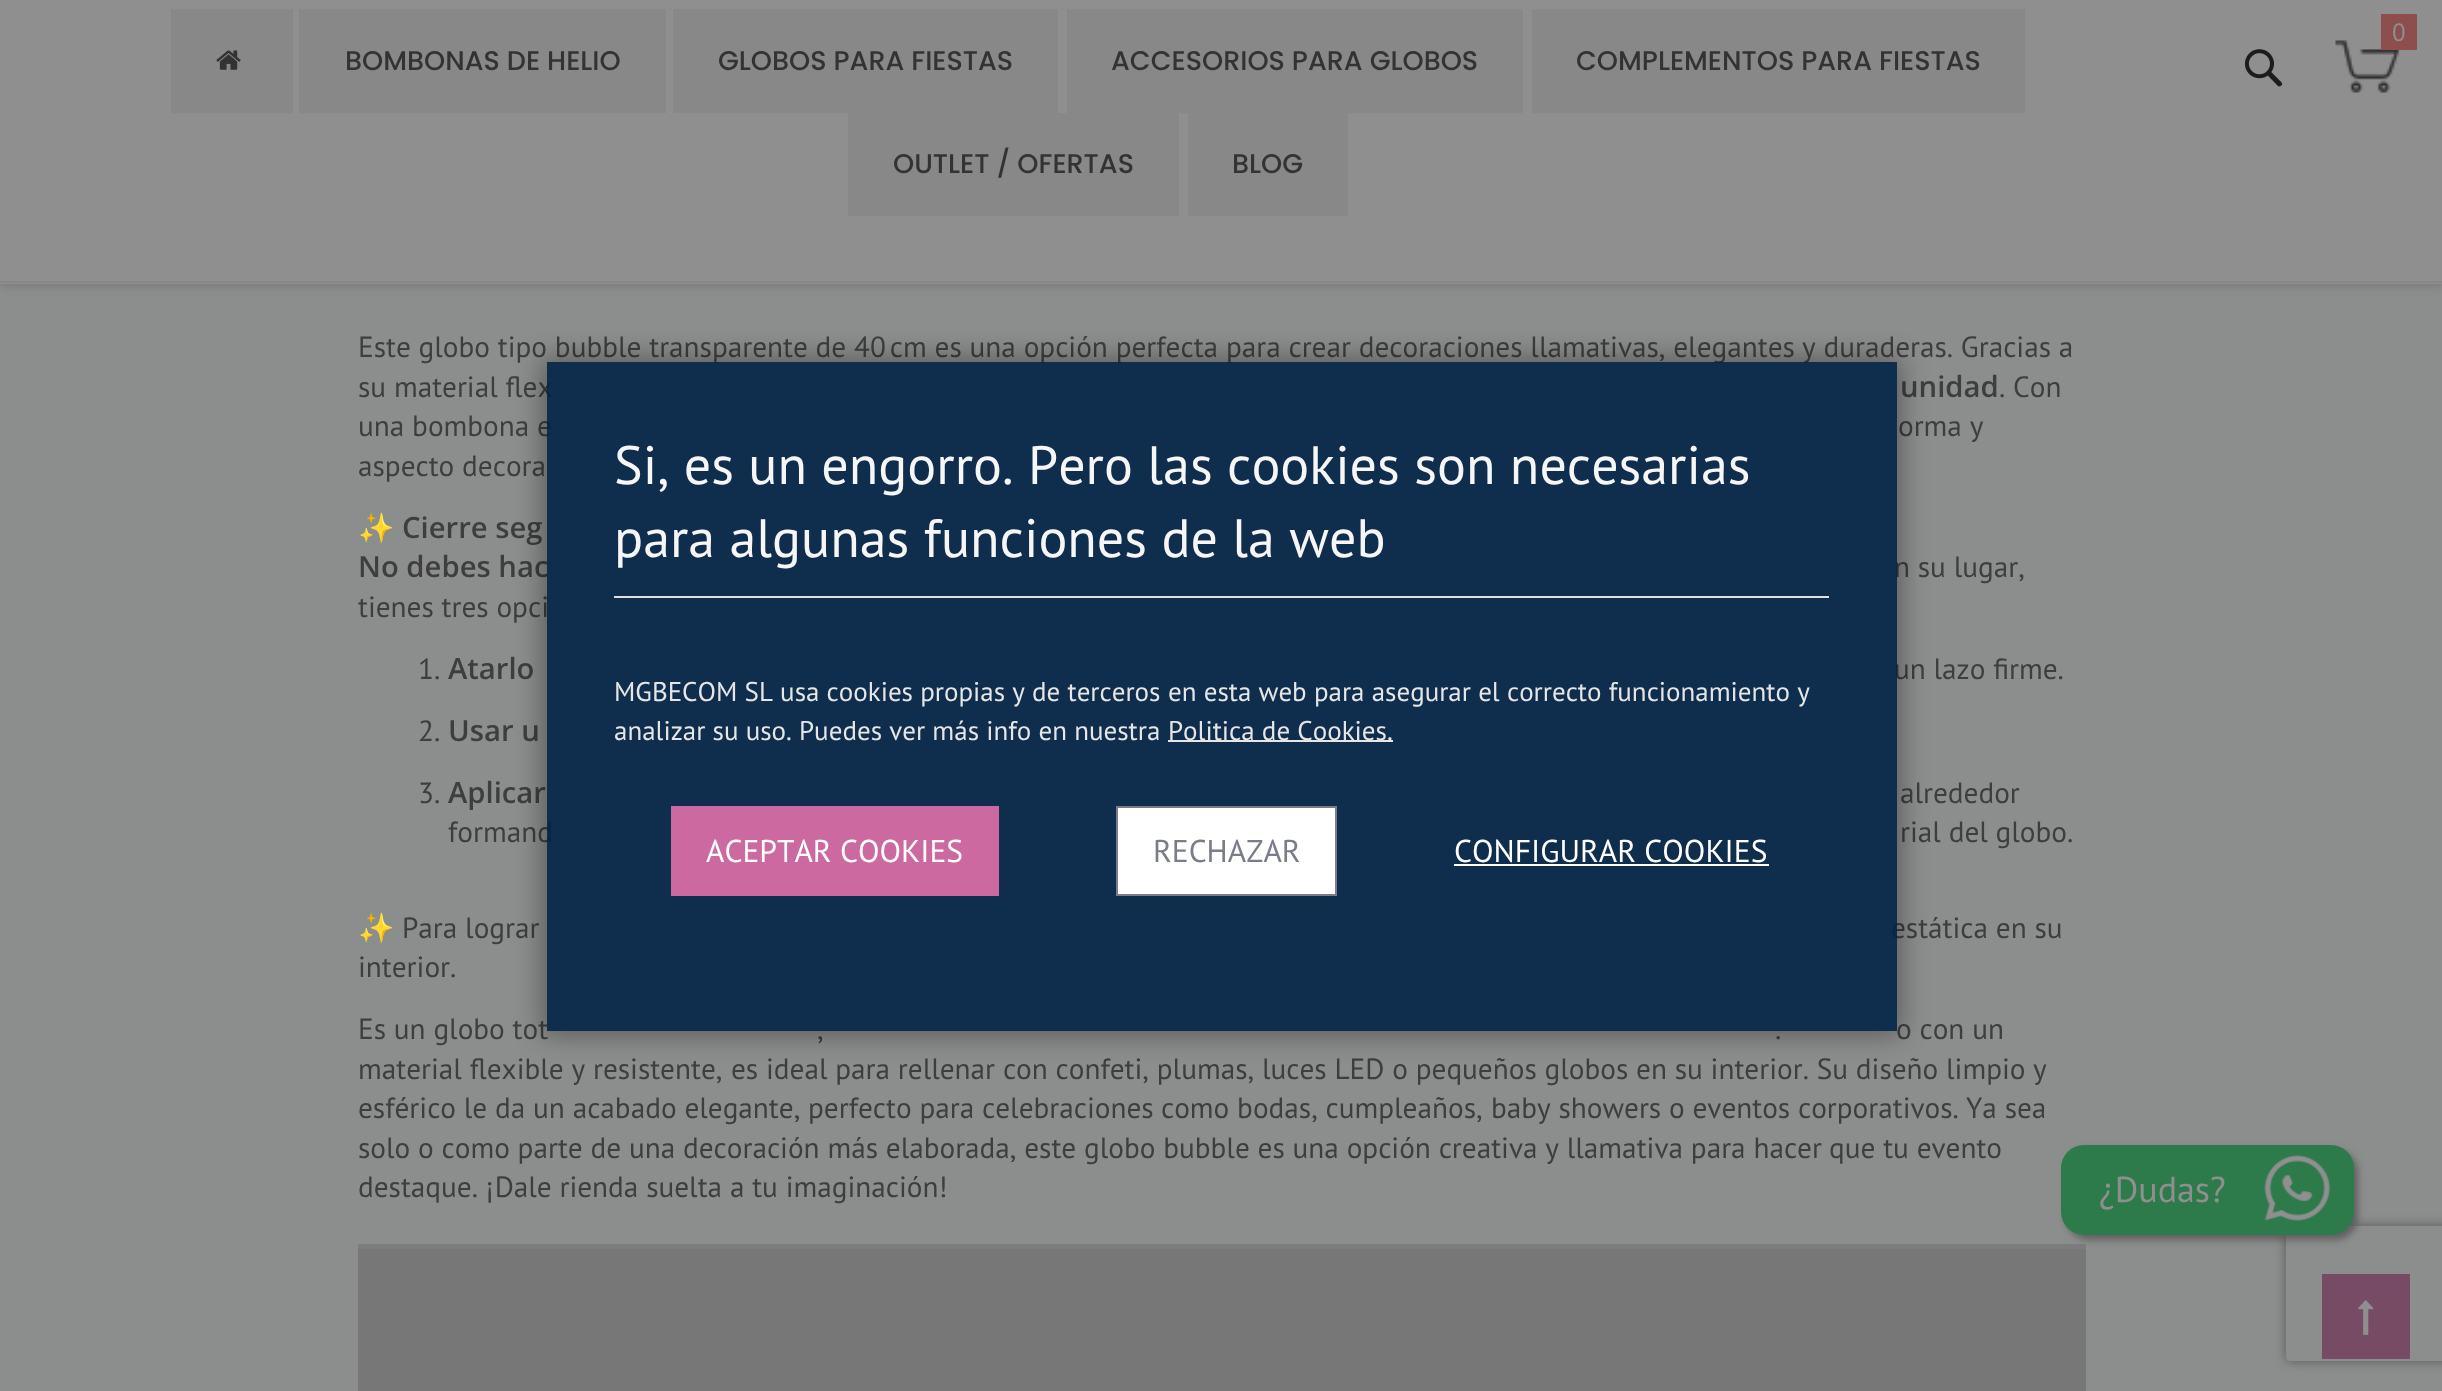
async function draw(canvas) {
  canvas.width = 2442;
  canvas.height = 1391;
  const ctx = canvas.getContext('2d');
  ctx.miterLimit = 4;
  ctx.fontKerning = 'none';
  function label(s, x, y, font, color) {
    ctx.font = font;
    ctx.fillStyle = color;
    ctx.fillText(s, x, y);
  }
  function rect(x, y, w, h, color) {
    ctx.fillStyle = color;
    ctx.fillRect(x, y, w, h);
  }
  function roundedRect(x, y, w, h, r, color) {
    ctx.fillStyle = color;
    ctx.beginPath();
    ctx.roundRect(x, y, w, h, r);
    ctx.fill();
  }
  async function image(src, x, y, w, h) {
    const img = new Image();
    img.src = src;
    await img.decode();
    ctx.drawImage(img, x, y, w, h);
  }
  let path;

  rect(0, 0, 2442, 1391, '#8c8d8d');
  ctx.fillStyle = '#717171';
  ctx.filter = 'blur(5.5px)';
  ctx.beginPath();
  ctx.rect(0, 0, 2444, 284);
  ctx.fill();
  ctx.filter = 'none';
  rect(0, 0, 2442, 284, '#8f8f8f');
  await image('assets/img1.png', 2335, 40, 65, 53);
  rect(2381, 14, 36, 36, '#8d4e4e');
  label('0', 2392, 41, '25px PT Sans', '#8f8f8f');
  await image('assets/img2.png', 2244, 49, 39, 38);
  rect(0, 281, 2442, 2, '#878787');
  rect(171, 9, 122, 104, '#888');
  await image('assets/img3.png', 216, 50, 25, 20);
  rect(299, 9, 367, 104, '#888');
  label('BOMBONAS DE HELIO', 345, 70, '500 27px Poppins', '#333');
  rect(673, 9, 385, 104, '#888');
  label('GLOBOS PARA FIESTAS', 718, 70, '500 27px Poppins', '#333');
  rect(1067, 9, 456, 104, '#888');
  label('ACCESORIOS PARA GLOBOS', 1111, 70, '500 27px Poppins', '#333');
  rect(1532, 9, 493, 104, '#888');
  label('COMPLEMENTOS PARA FIESTAS', 1576, 70, '500 27px Poppins', '#333');
  rect(848, 113, 331, 103, '#888');
  label('OUTLET / OFERTAS', 893, 173, '500 27px Poppins', '#333');
  rect(1188, 113, 160, 103, '#888');
  label('BLOG', 1232, 173, '500 27px Poppins', '#333');
  label('Este globo tipo bubble transparente de 40 cm es una opción perfecta para crear decoraciones llamativas, elegantes', 358, 357, '29.25px PT Sans', '#3e3e3e');
  label('y duraderas. Gracias a', 1802, 357, '29.25px PT Sans', '#3e3e3e');
  label('su material flex', 358, 397, '29.25px PT Sans', '#3e3e3e');
  label('unidad', 1900, 397, '600 29.25px Open Sans', '#3e3e3e');
  label('. Con', 1999, 397, '29.25px PT Sans', '#3e3e3e');
  label('una bombona e', 358, 436, '29.25px PT Sans', '#3e3e3e');
  label('orma y', 1898, 436, '29.25px PT Sans', '#3e3e3e');
  label('aspecto decora', 358, 476, '29.25px PT Sans', '#3e3e3e');
  label('✨', 358, 538, 'bold 29.25px Noto Color Emoji', '#3e3e3e');
  label('Cierre seg', 402, 538, '600 29.25px Open Sans', '#3e3e3e');
  label('No debes hac', 358, 577, '600 29.25px Open Sans', '#3e3e3e');
  label('n su lugar,', 1894, 577, '29.25px PT Sans', '#3e3e3e');
  label('tienes tres opci', 358, 617, '29.25px PT Sans', '#3e3e3e');
  label('1.', 418, 679, '29.25px PT Sans', '#3e3e3e');
  label('Atarlo', 448, 679, '600 29.25px Open Sans', '#3e3e3e');
  label('un lazo firme.', 1894, 679, '29.25px PT Sans', '#3e3e3e');
  label('2.', 418, 741, '29.25px PT Sans', '#3e3e3e');
  label('Usar u', 448, 741, '600 29.25px Open Sans', '#3e3e3e');
  label('3.', 418, 803, '29.25px PT Sans', '#3e3e3e');
  label('Aplicar', 448, 803, '600 29.25px Open Sans', '#3e3e3e');
  label('alrededor', 1900, 803, '29.25px PT Sans', '#3e3e3e');
  label('formand', 448, 842, '29.25px PT Sans', '#3e3e3e');
  label('rial del globo.', 1900, 842, '29.25px PT Sans', '#3e3e3e');
  label('✨', 358, 938, '29.25px Noto Color Emoji', '#3e3e3e');
  label('Para lograr', 402, 938, '29.25px PT Sans', '#3e3e3e');
  label('estática en su', 1891, 938, '29.25px PT Sans', '#3e3e3e');
  label('interior.', 358, 977, '29.25px PT Sans', '#3e3e3e');
  label('Es un globo tot', 358, 1039, '29.25px PT Sans', '#3e3e3e');
  label(',', 817, 1039, '29.25px PT Sans', '#3e3e3e');
  label('.', 1775, 1039, '29.25px PT Sans', '#3e3e3e');
  label('o con un', 1896, 1039, '29.25px PT Sans', '#3e3e3e');
  label('material flexible y resistente,', 358, 1079, '29.25px PT Sans', '#3e3e3e');
  label('es ideal para rellenar con confeti, plumas,', 731, 1079, '29.25px PT Sans', '#3e3e3e');
  label('luces LED o pequeños globos en su interior. Su diseño limpio', 1262, 1079, '29.25px PT Sans', '#3e3e3e');
  label('y', 2033, 1079, '29.25px PT Sans', '#3e3e3e');
  label('esférico le da un acabado elegante, perfecto para celebraciones', 358, 1118, '29.25px PT Sans', '#3e3e3e');
  label('como bodas, cumpleaños,', 1161, 1118, '29.25px PT Sans', '#3e3e3e');
  label('baby showers o eventos corporativos.', 1491, 1118, '29.25px PT Sans', '#3e3e3e');
  label('Ya sea', 1966, 1118, '29.25px PT Sans', '#3e3e3e');
  label('solo o como parte de una decoración más elaborada, este globo bubble es una opción creativa y llamativa para hacer', 358, 1158, '29.25px PT Sans', '#3e3e3e');
  label('que tu evento', 1829, 1158, '29.25px PT Sans', '#3e3e3e');
  label('destaque. ¡Dale rienda suelta a tu imaginación!', 358, 1197, '29.25px PT Sans', '#3e3e3e');
  rect(358, 1249, 1728, 142, '#777');
  rect(358, 1244, 1728, 5, '#7c7c7c');
  ctx.fillStyle = '#616161';
  ctx.filter = 'blur(3.5px)';
  ctx.beginPath();
  ctx.roundRect(2066, 1150, 292, 90, 23);
  ctx.fill();
  ctx.filter = 'none';
  ctx.save();
  path = new Path2D('M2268 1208H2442V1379H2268ZM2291 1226H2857C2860 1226 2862 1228 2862 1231V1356C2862 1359 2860 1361 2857 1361H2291C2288 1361 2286 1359 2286 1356V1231C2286 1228 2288 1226 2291 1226Z');
  ctx.clip(path, 'evenodd');
  ctx.fillStyle = '#565656';
  ctx.filter = 'blur(5.5px)';
  ctx.beginPath();
  ctx.roundRect(2286, 1226, 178, 135, 5);
  ctx.fill();
  ctx.filter = 'none';
  ctx.restore();
  roundedRect(2061, 1145, 293, 90, 23, '#2d7b4a');
  label('¿Dudas?', 2099, 1202, '36px PT Sans', '#8f8f8f');
  await image('assets/img4.png', 2264, 1155, 67, 66);
  rect(2322, 1274, 88, 85, '#784b64');
  await image('assets/img5.png', 2358, 1300, 16, 35);
  ctx.save();
  path = new Path2D('M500 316H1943V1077H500ZM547 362H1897V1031H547Z');
  ctx.clip(path, 'evenodd');
  ctx.fillStyle = '#00000059';
  ctx.filter = 'blur(13.5px)';
  ctx.beginPath();
  ctx.rect(542, 358, 1359, 677);
  ctx.fill();
  ctx.filter = 'none';
  ctx.restore();
  rect(547, 362, 1350, 669, '#002244e3');
  rect(614, 596, 1215, 2, '#e0e0e0');
  label('Si, es un engorro.', 614, 484, '54px PT Sans', '#f6f6f6');
  label('Pero las cookies son necesarias', 1028, 484, '54px PT Sans', '#f6f6f6');
  label('para algunas funciones de la web', 614, 557, '54px PT Sans', '#f6f6f6');
  label('MGBECOM SL usa cookies propias y de terceros', 614, 701, '27px PT Sans', '#e6e6e6');
  label('en esta web para asegurar el correcto funcionamiento y', 1168, 701, '27px PT Sans', '#e6e6e6');
  label('analizar su uso. Puedes ver más info en nuestra', 614, 740, '27px PT Sans', '#e6e6e6');
  rect(1168, 740, 225, 2, '#e6e6e6');
  label('Politica de Cookies.', 1168, 740, '27px PT Sans', '#e6e6e6');
  rect(671, 806, 328, 90, '#cc69a1');
  label('ACEPTAR COOKIES', 706, 862, '31.5px PT Sans', '#fff');
  ctx.beginPath();
  ctx.rect(1117, 807, 219, 88);
  ctx.fill();
  ctx.strokeStyle = '#797d89';
  ctx.lineWidth = 2;
  ctx.stroke();
  label('RECHAZAR', 1153, 862, '31.5px PT Sans', '#797d89');
  label('CONFIGURAR COOKIES', 1454, 862, '31.5px PT Sans', '#fff');
  rect(1454, 864, 315, 2, '#fff');
}

draw(document.querySelector('canvas'));
